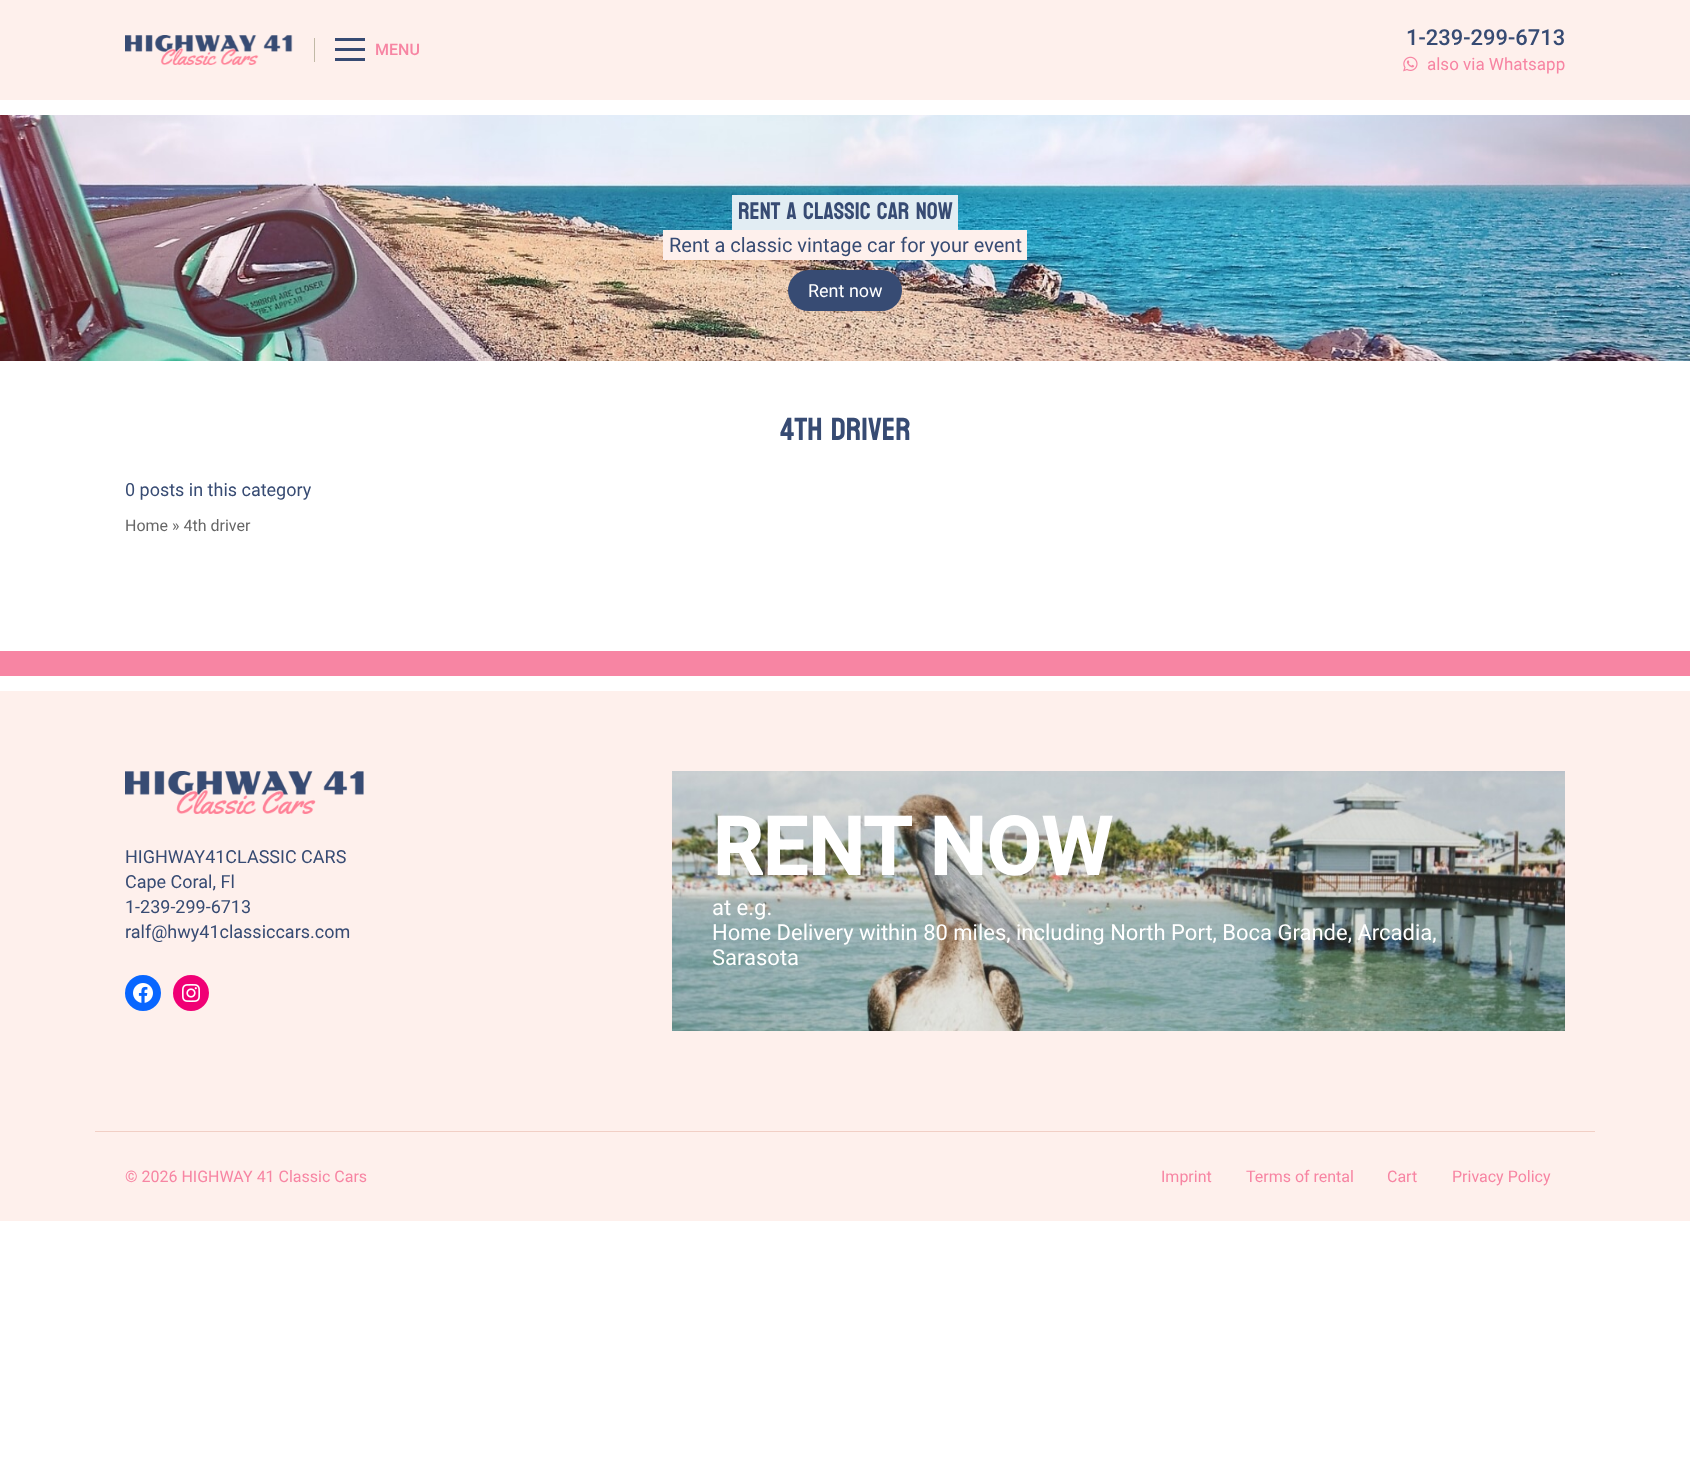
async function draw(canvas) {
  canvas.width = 1690;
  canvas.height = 1468;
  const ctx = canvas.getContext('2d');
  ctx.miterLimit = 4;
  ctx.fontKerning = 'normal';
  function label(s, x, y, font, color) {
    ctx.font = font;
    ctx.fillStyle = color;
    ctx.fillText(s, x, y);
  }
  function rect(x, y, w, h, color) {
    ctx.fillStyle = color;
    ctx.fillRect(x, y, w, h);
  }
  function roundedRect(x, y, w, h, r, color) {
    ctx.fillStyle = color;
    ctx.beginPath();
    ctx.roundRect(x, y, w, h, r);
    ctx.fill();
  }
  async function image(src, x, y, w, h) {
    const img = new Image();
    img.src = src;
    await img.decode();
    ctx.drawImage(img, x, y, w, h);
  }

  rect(0, 0, 1690, 1468, '#fff');
  rect(0, 0, 1690, 100, '#fef0ec');
  await image('assets/img1.png', 125, 35, 168, 30);
  rect(314, 38, 1, 24, '#c1b9a6');
  rect(335, 38, 30, 3, '#374b73');
  rect(335, 48, 30, 3, '#374b73');
  rect(335, 58, 30, 3, '#374b73');
  label('MENU', 375, 55, '500 16px Roboto', '#f785a3');
  label('1-239-299-6713', 1406, 45, '500 22px Roboto', '#374b73');
  await image('assets/img2.png', 1403, 56, 15, 16);
  label('also via Whatsapp', 1427, 70, '17px Roboto', '#f785a3');
  await image('assets/img3.png', 0, 115, 1690, 246);
  rect(732, 195, 226, 35, '#e2edf3');
  label('Rent a classic car now', 738, 219, '24px Koulen', '#374b73');
  rect(663, 230, 364, 30, '#fef0ec');
  label('Rent a classic vintage car for your event', 669, 252, '20px Roboto', '#374b73');
  roundedRect(788, 270, 114, 41, 20.5, '#374b73');
  label('Rent now', 808, 297, '18px Roboto', '#fff');
  label('4th driver', 780, 440, '32px Koulen', '#374b73');
  label('0 posts in this category', 125, 496, '18px Roboto', '#374b73');
  label('Home » 4th driver', 125, 531, '16px Roboto', '#666');
  rect(0, 691, 1690, 530, '#fef0ec');
  rect(0, 651, 1690, 25, '#f785a3');
  await image('assets/img4.png', 125, 771, 239, 43);
  label('HIGHWAY41CLASSIC CARS', 125, 863, '18px Roboto', '#374b73');
  label('Cape Coral, Fl', 125, 888, '18px Roboto', '#374b73');
  label('1-239-299-6713', 125, 913, '18px Roboto', '#374b73');
  label('ralf@hwy41classiccars.com', 125, 938, '18px Roboto', '#374b73');
  ctx.fillStyle = '#0866ff';
  ctx.beginPath();
  ctx.arc(143, 993, 18, 0, 2 * Math.PI);
  ctx.fill();
  await image('assets/img5.png', 133, 983, 20, 20);
  ctx.fillStyle = '#f00075';
  ctx.beginPath();
  ctx.arc(191, 993, 18, 0, 2 * Math.PI);
  ctx.fill();
  await image('assets/img6.png', 182, 984, 18, 18);
  await image('assets/img7.png', 672, 771, 893, 260);
  label('RENT NOW', 712, 875, 'bold 80px Roboto', '#fff');
  label('at e.g.', 712, 915, '22px Roboto', '#fff');
  label('Home Delivery within 80 miles, including North Port, Boca Grande, Arcadia,', 712, 940, '22px Roboto', '#fff');
  label('Sarasota', 712, 965, '22px Roboto', '#fff');
  rect(95, 1131, 1500, 1, '#f1cfc5');
  label('© 2026 HIGHWAY 41 Classic Cars', 125, 1182, '16px Roboto', '#f785a3');
  label('Imprint', 1161, 1182, '16px Roboto', '#f785a3');
  label('Terms of rental', 1246, 1182, '16px Roboto', '#f785a3');
  label('Cart', 1387, 1182, '16px Roboto', '#f785a3');
  label('Privacy Policy', 1452, 1182, '16px Roboto', '#f785a3');
}

draw(document.querySelector('canvas'));
